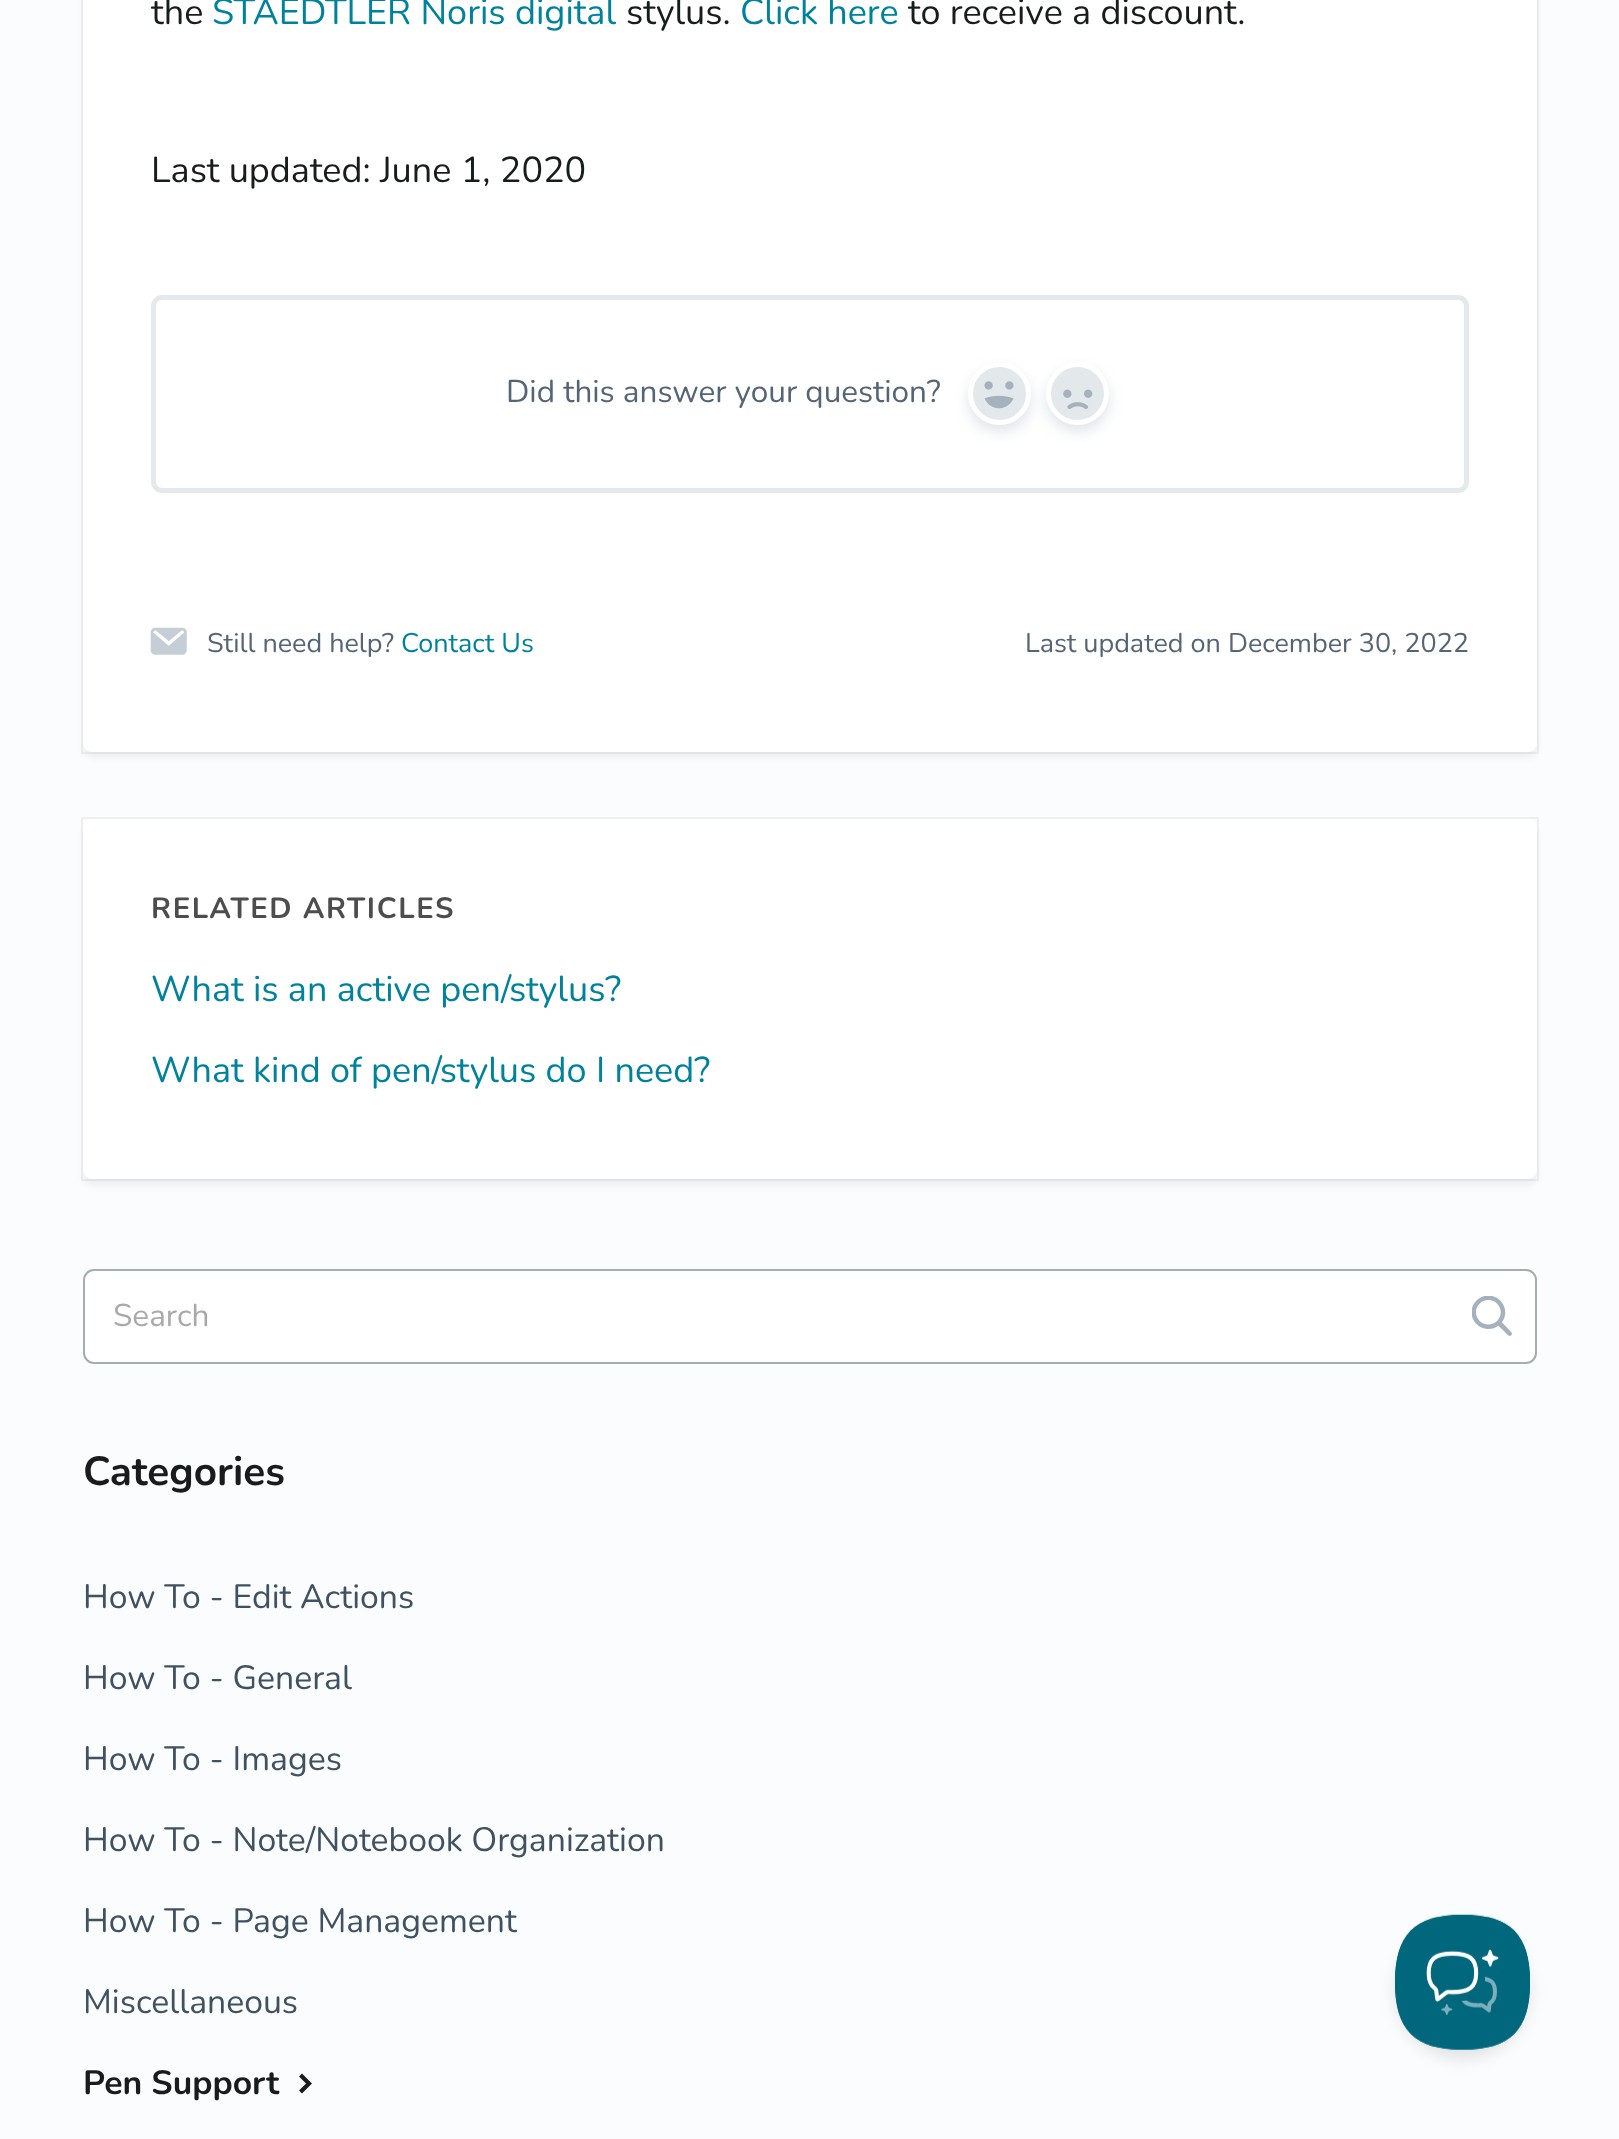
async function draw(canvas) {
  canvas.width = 1619;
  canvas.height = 2139;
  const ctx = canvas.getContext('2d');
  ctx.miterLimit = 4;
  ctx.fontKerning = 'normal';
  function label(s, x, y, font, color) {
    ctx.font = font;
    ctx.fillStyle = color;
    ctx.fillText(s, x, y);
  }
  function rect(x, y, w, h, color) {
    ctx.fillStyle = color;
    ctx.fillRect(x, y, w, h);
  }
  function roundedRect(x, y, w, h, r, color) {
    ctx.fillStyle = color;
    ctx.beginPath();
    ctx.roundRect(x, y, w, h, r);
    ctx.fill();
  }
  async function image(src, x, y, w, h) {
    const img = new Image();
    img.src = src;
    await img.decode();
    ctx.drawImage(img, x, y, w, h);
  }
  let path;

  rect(0, 0, 1619, 2139, '#fafcfd');
  ctx.fillStyle = '#0000000d';
  ctx.filter = 'blur(3.5px)';
  ctx.beginPath();
  ctx.roundRect(83, -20, 1454, 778, 9);
  ctx.fill();
  ctx.filter = 'none';
  ctx.strokeStyle = '#0000000d';
  ctx.lineWidth = 2;
  ctx.strokeRect(82, -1, 1456, 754);
  roundedRect(83, -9, 1454, 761, 9, '#fff');
  label('the', 151, 24, '36px Nunito', '#191c1d');
  label('STAEDTLER Noris digital', 212, 24, '36px Nunito', '#00829d');
  label('stylus.', 626, 24, '36px Nunito', '#191c1d');
  label('Click here', 740, 24, '36px Nunito', '#00829d');
  label('to receive a discount.', 908, 24, '36px Nunito', '#191c1d');
  label('Last updated: June 1, 2020', 151, 182, '36px Nunito', '#191c1d');
  ctx.beginPath();
  ctx.roundRect(153.5, 297.5, 1313, 193, 8.5);
  ctx.strokeStyle = '#e5e9ec';
  ctx.lineWidth = 5;
  ctx.stroke();
  label('Did this answer your question?', 506, 402, '31.5px Nunito', '#556575');
  ctx.fillStyle = '#c1cbd480';
  ctx.filter = 'blur(7px)';
  ctx.beginPath();
  ctx.roundRect(968, 369, 63, 63, 31.5);
  ctx.fill();
  ctx.filter = 'none';
  ctx.fillStyle = '#e3e8eb';
  ctx.beginPath();
  ctx.arc(999.5, 393.5, 29, 0, 2 * Math.PI);
  ctx.fill();
  ctx.strokeStyle = '#fff';
  ctx.stroke();
  await image('assets/img1.png', 984, 381, 30, 28);
  ctx.fillStyle = '#c1cbd480';
  ctx.filter = 'blur(7px)';
  ctx.beginPath();
  ctx.roundRect(1046, 369, 63, 63, 31.5);
  ctx.fill();
  ctx.filter = 'none';
  ctx.fillStyle = '#e3e8eb';
  ctx.beginPath();
  ctx.arc(1077.5, 393.5, 29, 0, 2 * Math.PI);
  ctx.fill();
  ctx.stroke();
  await image('assets/img2.png', 1063, 389, 30, 20);
  await image('assets/img3.png', 150, 627, 37, 28);
  label('Still need help?', 207, 652, '27px Nunito', '#556575');
  label('Contact Us', 401, 652, '27px Nunito', '#00829d');
  label('Last updated on December 30, 2022', 1025, 652, '27px Nunito', '#556575');
  ctx.fillStyle = '#0000000d';
  ctx.filter = 'blur(3.5px)';
  ctx.beginPath();
  ctx.roundRect(83, 826, 1454, 360, 9);
  ctx.fill();
  ctx.filter = 'none';
  ctx.strokeStyle = '#0000000d';
  ctx.lineWidth = 2;
  ctx.strokeRect(82, 818, 1456, 362);
  roundedRect(83, 819, 1454, 360, 9, '#fff');
  ctx.letterSpacing = '1.6px';
  label('RELATED ARTICLES', 151, 918, 'bold 29.25px Nunito', '#4d4d4d');
  ctx.letterSpacing = '0px';
  label('What is an active pen/stylus?', 151, 1001, '36px Nunito', '#00829d');
  label('What kind of pen/stylus do I need?', 151, 1082, '36px Nunito', '#00829d');
  ctx.fillStyle = '#fff';
  ctx.beginPath();
  ctx.roundRect(84, 1270, 1452, 93, 10);
  ctx.fill();
  ctx.strokeStyle = '#a4adb0';
  ctx.stroke();
  label('Search', 113, 1326, '31.5px Nunito', '#a8a9a9');
  await image('assets/img4.png', 1472, 1296, 40, 40);
  label('Categories', 83, 1485, 'bold 40.5px Nunito', '#191c1d');
  label('How To - Edit Actions', 83, 1608, '33.75px Nunito', '#405261');
  label('How To - General', 83, 1689, '33.75px Nunito', '#405261');
  label('How To - Images', 83, 1770, '33.75px Nunito', '#405261');
  label('How To - Note/Notebook Organization', 83, 1851, '33.75px Nunito', '#405261');
  label('How To - Page Management', 83, 1932, '33.75px Nunito', '#405261');
  label('Miscellaneous', 83, 2013, '33.75px Nunito', '#405261');
  label('Pen Support', 83, 2094, 'bold 33.75px Nunito', '#191c1d');
  path = new Path2D('M302 2073.5L299 2076.5L306 2083.5L299 2090.5L302 2093.5L312 2083.5Z');
  ctx.fill(path);
  ctx.fillStyle = '#0000001a';
  ctx.filter = 'blur(8px)';
  ctx.beginPath();
  ctx.roundRect(1395, 1924, 135, 135, 67.5);
  ctx.fill();
  ctx.filter = 'none';
  await image('assets/img5.png', 1395, 1914, 135, 136);
}

draw(document.querySelector('canvas'));
